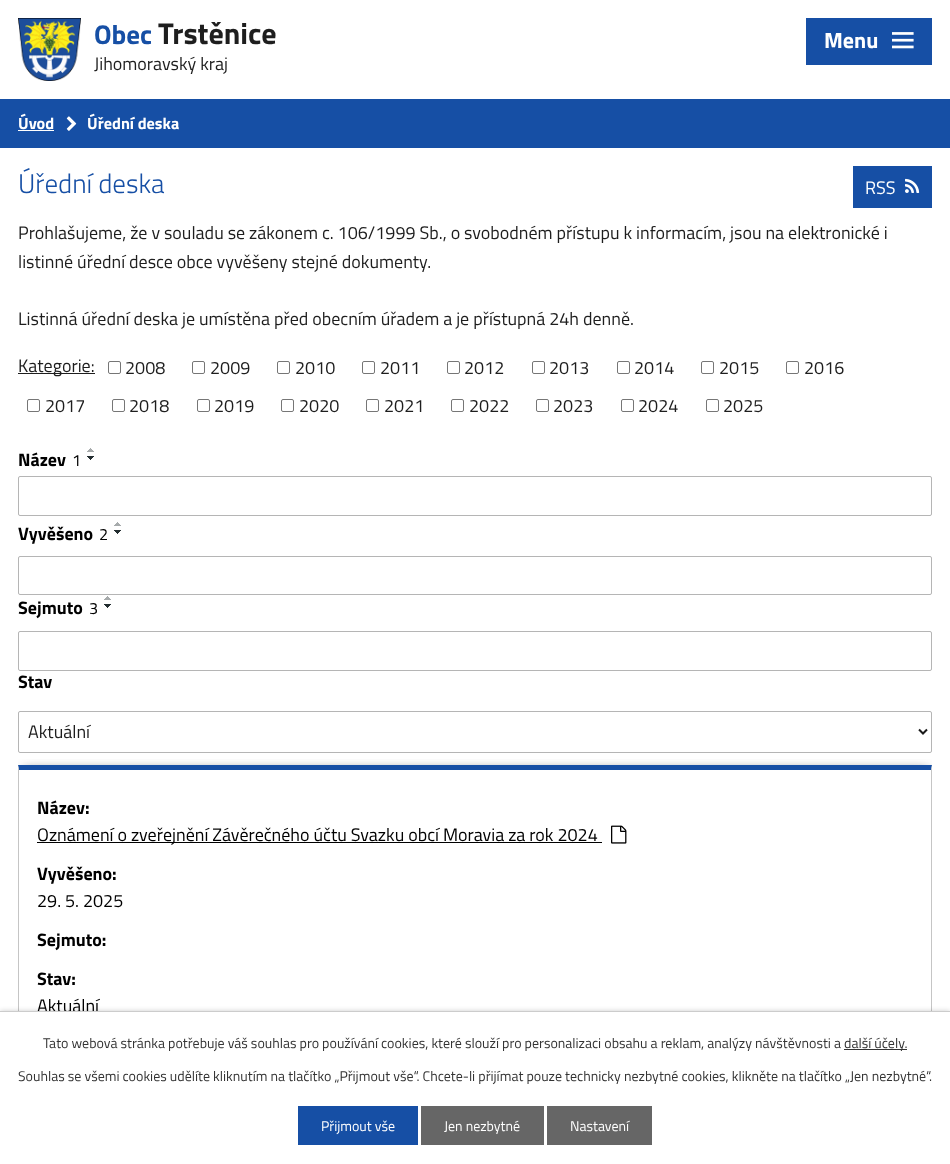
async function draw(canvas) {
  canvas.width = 950;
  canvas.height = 1164;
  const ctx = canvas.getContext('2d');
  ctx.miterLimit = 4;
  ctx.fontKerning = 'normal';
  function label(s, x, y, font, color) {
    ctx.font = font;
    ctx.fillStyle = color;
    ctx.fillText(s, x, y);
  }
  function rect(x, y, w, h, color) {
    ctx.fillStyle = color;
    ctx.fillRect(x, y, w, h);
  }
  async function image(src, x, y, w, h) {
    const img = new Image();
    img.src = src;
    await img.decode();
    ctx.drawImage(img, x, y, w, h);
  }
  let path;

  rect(0, 0, 950, 1164, '#fff');
  await image('assets/img1.png', 18, 18, 63, 63);
  label('Obec', 94, 44, 'bold 27px Titillium Web', '#164fa5');
  label('Trstěnice', 158, 44, 'bold 30px Titillium Web', '#1e1e1e');
  label('Jihomoravský kraj', 94, 70, '18px Titillium Web', '#1e1e1e');
  rect(806, 18, 126, 47, '#164fa5');
  label('Menu', 824, 48, 'bold 22px Titillium Web', '#fff');
  await image('assets/img2.png', 892, 32, 22, 17);
  rect(0, 99, 950, 49, '#164fa5');
  label('Úvod', 18, 129, 'bold 16.25px Titillium Web', '#fff');
  rect(18, 130, 36, 1, '#fff');
  await image('assets/img3.png', 66, 116, 11, 15);
  label('Úřední deska', 87, 129, 'bold 16.25px Titillium Web', '#fff');
  label('Úřední deska', 18, 193, '300 27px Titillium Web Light', '#164fa5');
  rect(853, 166, 79, 42, '#164fa5');
  label('RSS', 865, 194, '18px Titillium Web', '#fff');
  await image('assets/img4.png', 905, 178, 15, 15);
  label('Prohlašujeme, že v souladu se zákonem c. 106/1999 Sb., o svobodném přístupu k informacím, jsou na elektronické i', 18, 239, '18px Titillium Web', '#1e1e1e');
  label('listinné úřední desce obce vyvěšeny stejné dokumenty.', 18, 268, '18px Titillium Web', '#1e1e1e');
  label('Listinná úřední deska je umístěna před obecním úřadem a je přístupná 24h denně.', 18, 325, '18px Titillium Web', '#1e1e1e');
  rect(18, 373, 77, 1, '#1e1e1e');
  label('Kategorie:', 18, 372, '18px Titillium Web', '#1e1e1e');
  ctx.beginPath();
  ctx.roundRect(108.5, 361.5, 12, 12, 1.5);
  ctx.strokeStyle = '#767676';
  ctx.stroke();
  label('2008', 125, 374, '18px Titillium Web', '#1e1e1e');
  ctx.beginPath();
  ctx.roundRect(192.5, 361.5, 12, 12, 1.5);
  ctx.stroke();
  label('2009', 210, 374, '18px Titillium Web', '#1e1e1e');
  ctx.beginPath();
  ctx.roundRect(277.5, 361.5, 12, 12, 1.5);
  ctx.stroke();
  label('2010', 295, 374, '18px Titillium Web', '#1e1e1e');
  ctx.beginPath();
  ctx.roundRect(362.5, 361.5, 12, 12, 1.5);
  ctx.stroke();
  label('2011', 380, 374, '18px Titillium Web', '#1e1e1e');
  ctx.beginPath();
  ctx.roundRect(447.5, 361.5, 12, 12, 1.5);
  ctx.stroke();
  label('2012', 464, 374, '18px Titillium Web', '#1e1e1e');
  ctx.beginPath();
  ctx.roundRect(532.5, 361.5, 12, 12, 1.5);
  ctx.stroke();
  label('2013', 549, 374, '18px Titillium Web', '#1e1e1e');
  ctx.beginPath();
  ctx.roundRect(617.5, 361.5, 12, 12, 1.5);
  ctx.stroke();
  label('2014', 634, 374, '18px Titillium Web', '#1e1e1e');
  ctx.beginPath();
  ctx.roundRect(701.5, 361.5, 12, 12, 1.5);
  ctx.stroke();
  label('2015', 719, 374, '18px Titillium Web', '#1e1e1e');
  ctx.beginPath();
  ctx.roundRect(786.5, 361.5, 12, 12, 1.5);
  ctx.stroke();
  label('2016', 804, 374, '18px Titillium Web', '#1e1e1e');
  ctx.beginPath();
  ctx.roundRect(27.5, 399.5, 12, 12, 1.5);
  ctx.stroke();
  label('2017', 45, 412, '18px Titillium Web', '#1e1e1e');
  ctx.beginPath();
  ctx.roundRect(112.5, 399.5, 12, 12, 1.5);
  ctx.stroke();
  label('2018', 129, 412, '18px Titillium Web', '#1e1e1e');
  ctx.beginPath();
  ctx.roundRect(197.5, 399.5, 12, 12, 1.5);
  ctx.stroke();
  label('2019', 214, 412, '18px Titillium Web', '#1e1e1e');
  ctx.beginPath();
  ctx.roundRect(281.5, 399.5, 12, 12, 1.5);
  ctx.stroke();
  label('2020', 299, 412, '18px Titillium Web', '#1e1e1e');
  ctx.beginPath();
  ctx.roundRect(366.5, 399.5, 12, 12, 1.5);
  ctx.stroke();
  label('2021', 384, 412, '18px Titillium Web', '#1e1e1e');
  ctx.beginPath();
  ctx.roundRect(451.5, 399.5, 12, 12, 1.5);
  ctx.stroke();
  label('2022', 469, 412, '18px Titillium Web', '#1e1e1e');
  ctx.beginPath();
  ctx.roundRect(536.5, 399.5, 12, 12, 1.5);
  ctx.stroke();
  label('2023', 553, 412, '18px Titillium Web', '#1e1e1e');
  ctx.beginPath();
  ctx.roundRect(621.5, 399.5, 12, 12, 1.5);
  ctx.stroke();
  label('2024', 638, 412, '18px Titillium Web', '#1e1e1e');
  ctx.beginPath();
  ctx.roundRect(706.5, 399.5, 12, 12, 1.5);
  ctx.stroke();
  label('2025', 723, 412, '18px Titillium Web', '#1e1e1e');
  label('Název', 18, 466, 'bold 18px Titillium Web', '#000');
  label('1', 72, 466, '16.25px Titillium Web', '#000');
  await image('assets/img5.png', 87, 448, 7, 4);
  await image('assets/img6.png', 87, 456, 7, 4);
  label('Vyvěšeno', 18, 540, 'bold 18px Titillium Web', '#000');
  label('2', 99, 540, '16.25px Titillium Web', '#000');
  await image('assets/img5.png', 114, 522, 7, 4);
  await image('assets/img6.png', 114, 530, 7, 4);
  label('Sejmuto', 18, 614, 'bold 18px Titillium Web', '#000');
  label('3', 89, 614, '16.25px Titillium Web', '#000');
  await image('assets/img5.png', 104, 596, 7, 4);
  await image('assets/img6.png', 104, 604, 7, 4);
  label('Stav', 18, 688, 'bold 18px Titillium Web', '#000');
  ctx.beginPath();
  ctx.roundRect(18.5, 476.5, 913, 39, 1.5);
  ctx.strokeStyle = '#b5b5b5';
  ctx.stroke();
  ctx.beginPath();
  ctx.roundRect(18.5, 556.5, 913, 38, 1.5);
  ctx.stroke();
  ctx.beginPath();
  ctx.roundRect(18.5, 631.5, 913, 39, 1.5);
  ctx.stroke();
  ctx.save();
  ctx.beginPath();
  ctx.rect(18, 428, 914, 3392);
  ctx.clip();
  ctx.beginPath();
  ctx.rect(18, 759, 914, 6);
  ctx.clip();
  ctx.fillStyle = '#1e1e1e';
  ctx.filter = 'blur(6px)';
  ctx.beginPath();
  ctx.rect(24, 771, 904, 269);
  ctx.fill();
  ctx.filter = 'none';
  ctx.restore();
  ctx.beginPath();
  ctx.roundRect(18.5, 711.5, 913, 41, 1.5);
  ctx.stroke();
  path = new Path2D('M919 729.5L923 733.5L927 729.5');
  ctx.strokeStyle = '#1a1a1a';
  ctx.lineWidth = 2;
  ctx.stroke(path);
  label('Aktuální', 28, 738, '18px Titillium Web', '#1e1e1e');
  ctx.fillStyle = '#164fa5';
  path = new Path2D('M18 765H932L931 770H19Z');
  ctx.fill(path);
  ctx.fillStyle = '#c5c5c5';
  path = new Path2D('M932 765V1044L931 1043V770Z');
  ctx.fill(path);
  path = new Path2D('M18 1044V765L19 770V1043Z');
  ctx.fill(path);
  label('Název:', 37, 814, 'bold 18px Titillium Web', '#000');
  rect(37, 842, 565, 1, '#000');
  label('Oznámení o zveřejnění Závěrečného účtu Svazku obcí Moravia za rok 2024', 37, 841, '18px Titillium Web', '#000');
  await image('assets/img7.png', 611, 825, 16, 19);
  label('Vyvěšeno:', 37, 880, 'bold 18px Titillium Web', '#000');
  label('29. 5. 2025', 37, 907, '18px Titillium Web', '#000');
  label('Sejmuto:', 37, 946, 'bold 18px Titillium Web', '#000');
  label('Stav:', 37, 985, 'bold 18px Titillium Web', '#000');
  label('Aktuální', 37, 1012, '18px Titillium Web', '#000');
  ctx.fillStyle = '#00000033';
  ctx.filter = 'blur(2.5px)';
  ctx.beginPath();
  ctx.rect(0, 1011, 950, 153);
  ctx.fill();
  ctx.filter = 'none';
  rect(0, 1012, 950, 152, '#fff');
  rect(0, 1011, 950, 1, '#ccc');
  label('Tato webová stránka potřebuje váš souhlas pro používání cookies, které slouží pro personalizaci obsahu a reklam, analýzy návštěvnosti a', 43, 1048, '14px Titillium Web', '#333');
  rect(844, 1049, 63, 1, '#333');
  label('další účely.', 844, 1048, '14px Titillium Web', '#333');
  label('Souhlas se všemi cookies udělíte kliknutím na tlačítko „Přijmout vše“. Chcete-li přijímat pouze technicky nezbytné cookies, klikněte na tlačítko „Jen nezbytné“.', 18, 1081, '14px Titillium Web', '#333');
  rect(298, 1106, 120, 39, '#164fa5');
  label('Přijmout vše', 321, 1131, '14px Titillium Web', '#fff');
  rect(421, 1106, 123, 39, '#666');
  label('Jen nezbytné', 444, 1131, '14px Titillium Web', '#fff');
  rect(547, 1106, 105, 39, '#666');
  label('Nastavení', 570, 1131, '14px Titillium Web', '#fff');
}

draw(document.querySelector('canvas'));
